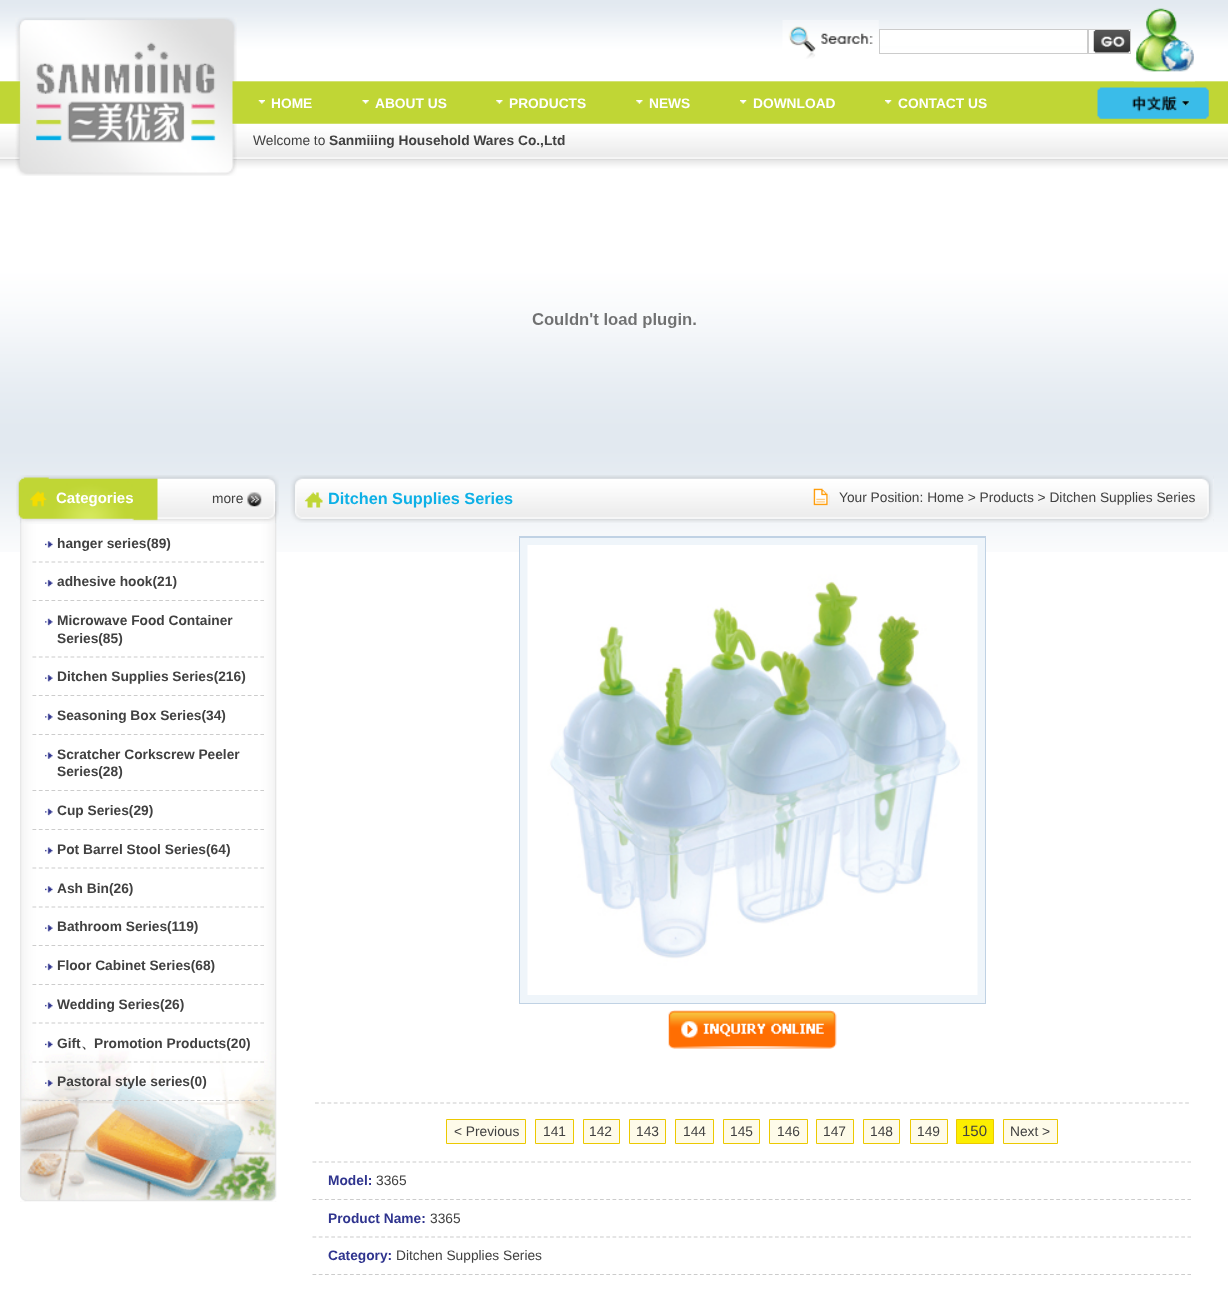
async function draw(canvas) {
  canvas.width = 1228;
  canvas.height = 1293;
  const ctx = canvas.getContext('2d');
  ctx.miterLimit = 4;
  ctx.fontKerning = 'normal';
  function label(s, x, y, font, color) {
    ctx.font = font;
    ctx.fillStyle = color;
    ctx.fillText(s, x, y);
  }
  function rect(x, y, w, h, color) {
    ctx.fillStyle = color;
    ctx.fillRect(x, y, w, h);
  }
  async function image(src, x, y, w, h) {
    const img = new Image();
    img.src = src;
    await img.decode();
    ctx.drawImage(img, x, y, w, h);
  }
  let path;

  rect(0, 0, 1228, 1293, '#fff');
  await image('assets/img1.png', 0, 0, 1228, 552);
  await image('assets/img2.png', 15, 17, 222, 159);
  await image('assets/img3.png', 782, 20, 97, 39);
  rect(880, 30, 207, 16, '#fff');
  ctx.strokeStyle = '#ccc';
  ctx.strokeRect(879.5, 29.5, 208, 24);
  rect(1089, 30, 41, 16, '#fff');
  ctx.strokeRect(1088.5, 29.5, 42, 24);
  await image('assets/img4.png', 1093, 30, 37, 23);
  await image('assets/img5.png', 1133, 8, 62, 74);
  await image('assets/img6.png', 258, 100, 7, 4);
  label('HOME', 271, 108, 'bold 13.75px Liberation Sans', '#fff');
  await image('assets/img7.png', 362, 100, 7, 4);
  label('ABOUT US', 375, 108, 'bold 13.75px Liberation Sans', '#fff');
  await image('assets/img8.png', 496, 100, 7, 4);
  label('PRODUCTS', 509, 108, 'bold 13.75px Liberation Sans', '#fff');
  await image('assets/img8.png', 636, 100, 7, 4);
  label('NEWS', 649, 108, 'bold 13.75px Liberation Sans', '#fff');
  await image('assets/img9.png', 740, 100, 7, 4);
  label('DOWNLOAD', 753, 108, 'bold 13.75px Liberation Sans', '#fff');
  await image('assets/img10.png', 885, 100, 7, 4);
  label('CONTACT US', 898, 108, 'bold 13.75px Liberation Sans', '#fff');
  await image('assets/img11.png', 1097, 87, 112, 32);
  label('Welcome to', 253, 145, '13.75px Liberation Sans', '#414141');
  label('Sanmiiing Household Wares Co.,Ltd', 329, 145, 'bold 13.75px Liberation Sans', '#414141');
  await image('assets/img12.png', 532, 313, 164, 15);
  await image('assets/img13.png', 16, 475, 263, 49);
  label('Categories', 56, 503, 'bold 15px Liberation Sans', '#fff');
  label('more', 212, 503, '13.75px Liberation Sans', '#414141');
  await image('assets/img14.png', 247, 492, 15, 15);
  await image('assets/img15.png', 20, 524, 257, 678);
  await image('assets/img16.png', 20, 1050, 257, 152);
  path = new Path2D('M32.5 562H264');
  ctx.lineWidth = 1.2;
  ctx.setLineDash([3.75, 2.58]);
  ctx.stroke(path);
  await image('assets/img17.png', 45, 541, 8, 7);
  label('hanger series(89)', 57, 548, 'bold 13.75px Liberation Sans', '#414141');
  path = new Path2D('M32.5 600.5H264');
  ctx.stroke(path);
  await image('assets/img18.png', 45, 579, 8, 8);
  label('adhesive hook(21)', 57, 586, 'bold 13.75px Liberation Sans', '#414141');
  path = new Path2D('M32.5 657H264');
  ctx.stroke(path);
  await image('assets/img19.png', 45, 618, 8, 8);
  label('Microwave Food Container', 57, 625, 'bold 13.75px Liberation Sans', '#414141');
  label('Series(85)', 57, 643, 'bold 13.75px Liberation Sans', '#414141');
  path = new Path2D('M32.5 695.5H264');
  ctx.stroke(path);
  await image('assets/img18.png', 45, 674, 8, 8);
  label('Ditchen Supplies Series(216)', 57, 681, 'bold 13.75px Liberation Sans', '#414141');
  path = new Path2D('M32.5 734.5H264');
  ctx.stroke(path);
  await image('assets/img19.png', 45, 713, 8, 8);
  label('Seasoning Box Series(34)', 57, 720, 'bold 13.75px Liberation Sans', '#414141');
  path = new Path2D('M32.5 790.5H264');
  ctx.stroke(path);
  await image('assets/img20.png', 45, 752, 8, 7);
  label('Scratcher Corkscrew Peeler', 57, 759, 'bold 13.75px Liberation Sans', '#414141');
  label('Series(28)', 57, 776, 'bold 13.75px Liberation Sans', '#414141');
  path = new Path2D('M32.5 829.5H264');
  ctx.stroke(path);
  await image('assets/img19.png', 45, 808, 8, 8);
  label('Cup Series(29)', 57, 815, 'bold 13.75px Liberation Sans', '#414141');
  path = new Path2D('M32.5 868H264');
  ctx.stroke(path);
  await image('assets/img20.png', 45, 847, 8, 7);
  label('Pot Barrel Stool Series(64)', 57, 854, 'bold 13.75px Liberation Sans', '#414141');
  path = new Path2D('M32.5 907H264');
  ctx.stroke(path);
  await image('assets/img17.png', 45, 886, 8, 7);
  label('Ash Bin(26)', 57, 893, 'bold 13.75px Liberation Sans', '#414141');
  path = new Path2D('M32.5 945.5H264');
  ctx.stroke(path);
  await image('assets/img18.png', 45, 924, 8, 8);
  label('Bathroom Series(119)', 57, 931, 'bold 13.75px Liberation Sans', '#414141');
  path = new Path2D('M32.5 984.5H264');
  ctx.stroke(path);
  await image('assets/img19.png', 45, 963, 8, 8);
  label('Floor Cabinet Series(68)', 57, 970, 'bold 13.75px Liberation Sans', '#414141');
  path = new Path2D('M32.5 1023H264');
  ctx.stroke(path);
  await image('assets/img20.png', 45, 1002, 8, 7);
  label('Wedding Series(26)', 57, 1009, 'bold 13.75px Liberation Sans', '#414141');
  path = new Path2D('M32.5 1062H264');
  ctx.stroke(path);
  await image('assets/img17.png', 45, 1041, 8, 7);
  label('Gift', 57, 1048, 'bold 13.75px Liberation Sans', '#414141');
  label('、', 81, 1048, 'bold 13.75px WenQuanYi Zen Hei', '#414141');
  label('Promotion Products(20)', 94, 1048, 'bold 13.75px Liberation Sans', '#414141');
  path = new Path2D('M32.5 1100.5H264');
  ctx.stroke(path);
  await image('assets/img21.png', 45, 1079, 8, 8);
  label('Pastoral style series(0)', 57, 1086, 'bold 13.75px Liberation Sans', '#414141');
  await image('assets/img22.png', 323, 475, 891, 48);
  await image('assets/img23.png', 290, 475, 33, 48);
  label('Ditchen Supplies Series', 328, 504, 'bold 16.25px Liberation Sans', '#0db0e6');
  await image('assets/img24.png', 813, 488, 17, 18);
  label('Your Position: Home > Products > Ditchen Supplies Series', 839, 502, '13.75px Liberation Sans', '#414141');
  await image('assets/img25.png', 1202, 475, 12, 48);
  rect(519, 536, 467, 468, '#c0d2e4');
  rect(520, 538, 465, 465, '#eff5fa');
  await image('assets/img26.png', 527, 545, 451, 450);
  await image('assets/img27.png', 668, 1010, 169, 39);
  path = new Path2D('M315 1103H1189');
  ctx.setLineDash([3.75, 2.51]);
  ctx.stroke(path);
  ctx.fillStyle = '#fefbe9';
  ctx.beginPath();
  ctx.rect(446.5, 1119.5, 79, 24);
  ctx.fill();
  ctx.strokeStyle = '#ecc901';
  ctx.lineWidth = 1;
  ctx.setLineDash([]);
  ctx.stroke();
  label('< Previous', 454, 1136, '13.75px Liberation Sans', '#414141');
  ctx.fillStyle = '#fefbe9';
  ctx.beginPath();
  ctx.rect(535.5, 1119.5, 38, 24);
  ctx.fill();
  ctx.stroke();
  label('141', 543, 1136, '13.75px Liberation Sans', '#414141');
  ctx.fillStyle = '#fefbe9';
  ctx.beginPath();
  ctx.rect(583.5, 1119.5, 36, 24);
  ctx.fill();
  ctx.stroke();
  label('142', 589, 1136, '13.75px Liberation Sans', '#414141');
  ctx.fillStyle = '#fefbe9';
  ctx.beginPath();
  ctx.rect(629.5, 1119.5, 36, 24);
  ctx.fill();
  ctx.stroke();
  label('143', 636, 1136, '13.75px Liberation Sans', '#414141');
  ctx.fillStyle = '#fefbe9';
  ctx.beginPath();
  ctx.rect(675.5, 1119.5, 38, 24);
  ctx.fill();
  ctx.stroke();
  label('144', 683, 1136, '13.75px Liberation Sans', '#414141');
  ctx.fillStyle = '#fefbe9';
  ctx.beginPath();
  ctx.rect(723.5, 1119.5, 36, 24);
  ctx.fill();
  ctx.stroke();
  label('145', 730, 1136, '13.75px Liberation Sans', '#414141');
  ctx.fillStyle = '#fefbe9';
  ctx.beginPath();
  ctx.rect(769.5, 1119.5, 38, 24);
  ctx.fill();
  ctx.stroke();
  label('146', 777, 1136, '13.75px Liberation Sans', '#414141');
  ctx.fillStyle = '#fefbe9';
  ctx.beginPath();
  ctx.rect(816.5, 1119.5, 37, 24);
  ctx.fill();
  ctx.stroke();
  label('147', 823, 1136, '13.75px Liberation Sans', '#414141');
  ctx.fillStyle = '#fefbe9';
  ctx.beginPath();
  ctx.rect(863.5, 1119.5, 36, 24);
  ctx.fill();
  ctx.stroke();
  label('148', 870, 1136, '13.75px Liberation Sans', '#414141');
  ctx.fillStyle = '#fefbe9';
  ctx.beginPath();
  ctx.rect(910.5, 1119.5, 37, 24);
  ctx.fill();
  ctx.stroke();
  label('149', 917, 1136, '13.75px Liberation Sans', '#414141');
  ctx.fillStyle = '#fcee00';
  ctx.beginPath();
  ctx.rect(956.5, 1119.5, 37, 24);
  ctx.fill();
  ctx.stroke();
  label('150', 962, 1136, '15px Liberation Sans', '#414141');
  ctx.fillStyle = '#fefbe9';
  ctx.beginPath();
  ctx.rect(1003.5, 1119.5, 54, 24);
  ctx.fill();
  ctx.stroke();
  label('Next >', 1010, 1136, '13.75px Liberation Sans', '#414141');
  path = new Path2D('M312.5 1162H1191');
  ctx.strokeStyle = '#ccc';
  ctx.lineWidth = 1.2;
  ctx.setLineDash([3.75, 2.5]);
  ctx.stroke(path);
  label('Model:', 328, 1185, 'bold 13.75px Liberation Sans', '#2f348e');
  label('3365', 376, 1185, '13.75px Liberation Sans', '#414141');
  path = new Path2D('M312.5 1199.5H1191');
  ctx.stroke(path);
  label('Product Name:', 328, 1223, 'bold 13.75px Liberation Sans', '#2f348e');
  label('3365', 430, 1223, '13.75px Liberation Sans', '#414141');
  path = new Path2D('M312.5 1237H1191');
  ctx.stroke(path);
  label('Category:', 328, 1260, 'bold 13.75px Liberation Sans', '#2f348e');
  label('Ditchen Supplies Series', 396, 1260, '13.75px Liberation Sans', '#414141');
  path = new Path2D('M312.5 1274.5H1191');
  ctx.stroke(path);
}

draw(document.querySelector('canvas'));
